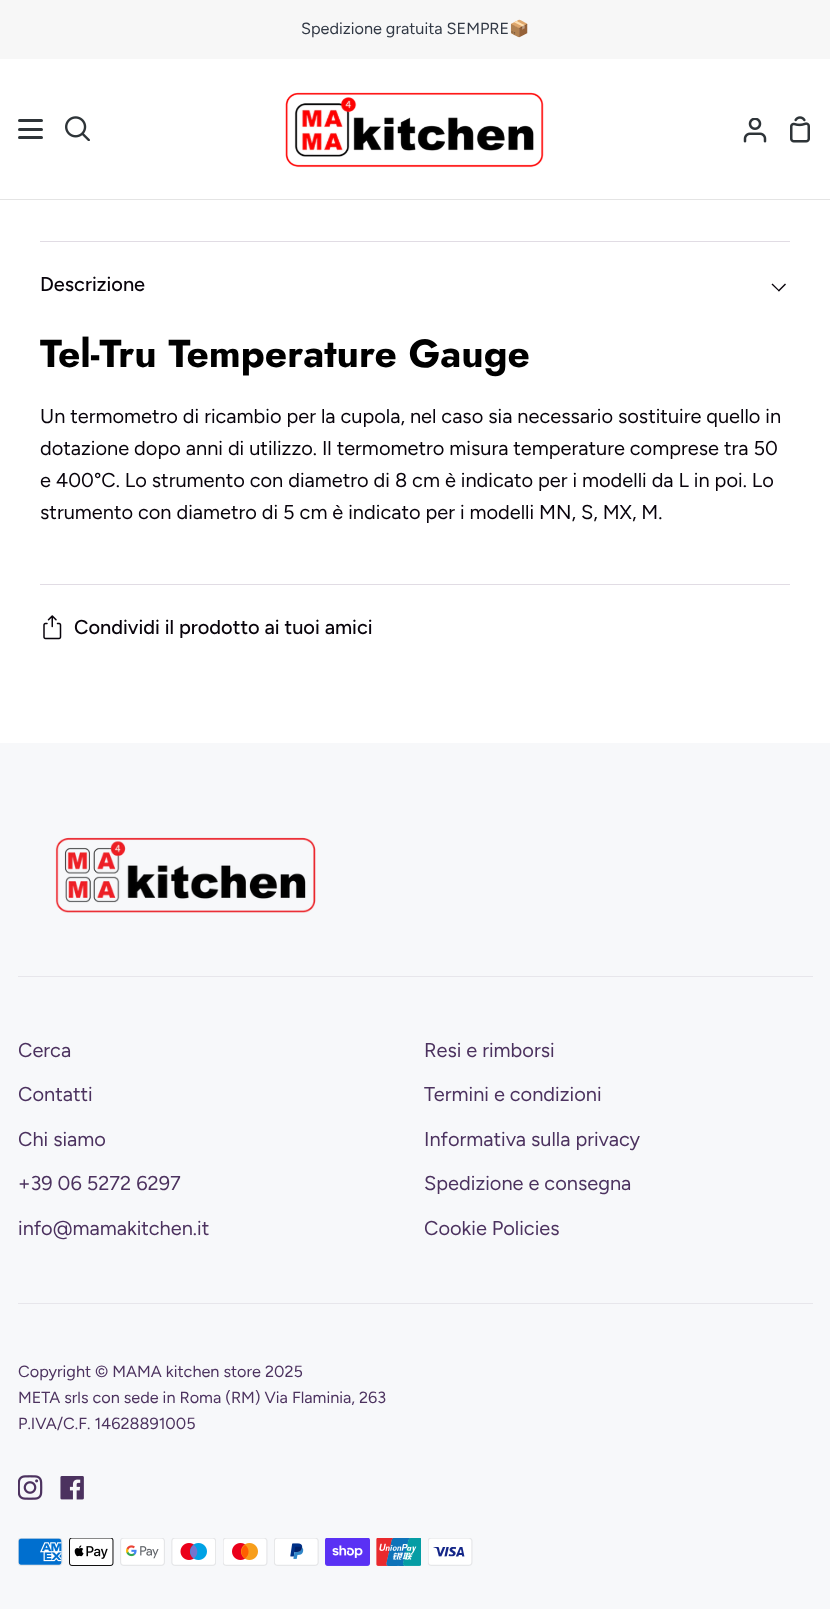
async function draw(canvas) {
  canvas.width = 830;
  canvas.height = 1609;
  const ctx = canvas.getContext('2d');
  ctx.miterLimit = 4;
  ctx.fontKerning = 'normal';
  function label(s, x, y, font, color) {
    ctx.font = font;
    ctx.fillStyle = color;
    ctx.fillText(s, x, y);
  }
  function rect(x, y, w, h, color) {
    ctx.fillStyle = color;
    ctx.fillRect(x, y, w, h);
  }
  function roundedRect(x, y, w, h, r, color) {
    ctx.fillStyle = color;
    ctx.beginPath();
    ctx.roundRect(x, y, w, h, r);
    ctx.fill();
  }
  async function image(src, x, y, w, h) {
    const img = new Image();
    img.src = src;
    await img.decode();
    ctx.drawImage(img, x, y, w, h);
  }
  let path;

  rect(0, 0, 830, 1609, '#fff');
  rect(0, 199, 830, 1, '#e4e4e4');
  rect(0, 0, 830, 59, '#f7f7f7');
  label('Spedizione gratuita SEMPRE', 301, 34, '16.25px Figtree', '#323945');
  label('📦', 509, 34, '16.25px Noto Color Emoji', '#323945');
  roundedRect(18, 119, 25, 3, 1.5, '#2e3438');
  roundedRect(18, 128, 25, 3, 1.5, '#2e3438');
  roundedRect(18, 136, 25, 3, 1.5, '#2e3438');
  await image('assets/img1.png', 65, 116, 25, 25);
  await image('assets/img2.png', 285, 92, 259, 76);
  await image('assets/img3.png', 743, 118, 24, 25);
  await image('assets/img4.png', 790, 116, 20, 27);
  rect(40, 241, 750, 1, '#e1dce4');
  rect(40, 584, 750, 1, '#e1dce4');
  label('Descrizione', 40, 291, '500 20px Figtree', '#08030b');
  path = new Path2D('M778 290.5L785 283.5L786 284.5L779 291.5Z');
  ctx.fill(path);
  path = new Path2D('M771.5 284.5L772.5 283.5L779.5 290.5L779 291.5Z');
  ctx.fill(path);
  label('Tel-Tru Temperature Gauge', 40, 367, 'bold 39px Jost', '#000');
  label('Un termometro di ricambio per la cupola, nel caso sia necessario sostituire quello in', 40, 423, '20px Figtree', '#08030b');
  label('dotazione dopo anni di utilizzo. Il termometro misura temperature comprese tra 50', 40, 455, '20px Figtree', '#08030b');
  label('e 400°C. Lo strumento con diametro di 8 cm è indicato per i modelli da L in poi. Lo', 40, 487, '20px Figtree', '#08030b');
  label('strumento con diametro di 5 cm è indicato per i modelli MN, S, MX, M.', 40, 519, '20px Figtree', '#08030b');
  await image('assets/img5.png', 43, 615, 19, 25);
  label('Condividi il prodotto ai tuoi amici', 74, 634, '500 20px Figtree', '#08030b');
  rect(0, 743, 830, 866, '#f7f8fa');
  await image('assets/img6.png', 55, 837, 261, 76);
  rect(18, 976, 795, 1, '#e7e6eb');
  label('Cerca', 18, 1057, '20px Figtree', '#4c325f');
  label('Contatti', 18, 1101, '20px Figtree', '#4c325f');
  label('Chi siamo', 18, 1146, '20px Figtree', '#4c325f');
  label('+39 06 5272 6297', 18, 1190, '20px Figtree', '#4c325f');
  label('info@mamakitchen.it', 18, 1235, '20px Figtree', '#4c325f');
  label('Resi e rimborsi', 424, 1057, '20px Figtree', '#4c325f');
  label('Termini e condizioni', 424, 1101, '20px Figtree', '#4c325f');
  label('Informativa sulla privacy', 424, 1146, '20px Figtree', '#4c325f');
  label('Spedizione e consegna', 424, 1190, '20px Figtree', '#4c325f');
  label('Cookie Policies', 424, 1235, '20px Figtree', '#4c325f');
  rect(18, 1303, 795, 1, '#e7e6eb');
  label('Copyright © MAMA kitchen store 2025', 18, 1377, '16.25px Figtree', '#4c325f');
  label('META srls con sede in Roma (RM) Via Flaminia, 263', 18, 1403, '16.25px Figtree', '#4c325f');
  label('P.IVA/C.F. 14628891005', 18, 1429, '16.25px Figtree', '#4c325f');
  await image('assets/img7.png', 18, 1475, 25, 25);
  await image('assets/img8.png', 60, 1476, 24, 24);
  await image('assets/img9.png', 18, 1538, 45, 28);
  await image('assets/img10.png', 69, 1538, 45, 28);
  await image('assets/img11.png', 120, 1538, 45, 28);
  await image('assets/img12.png', 171, 1538, 45, 28);
  await image('assets/img13.png', 223, 1538, 45, 28);
  await image('assets/img14.png', 274, 1538, 45, 28);
  await image('assets/img15.png', 325, 1538, 45, 28);
  await image('assets/img16.png', 376, 1538, 45, 28);
  await image('assets/img17.png', 428, 1538, 45, 28);
}

draw(document.querySelector('canvas'));
